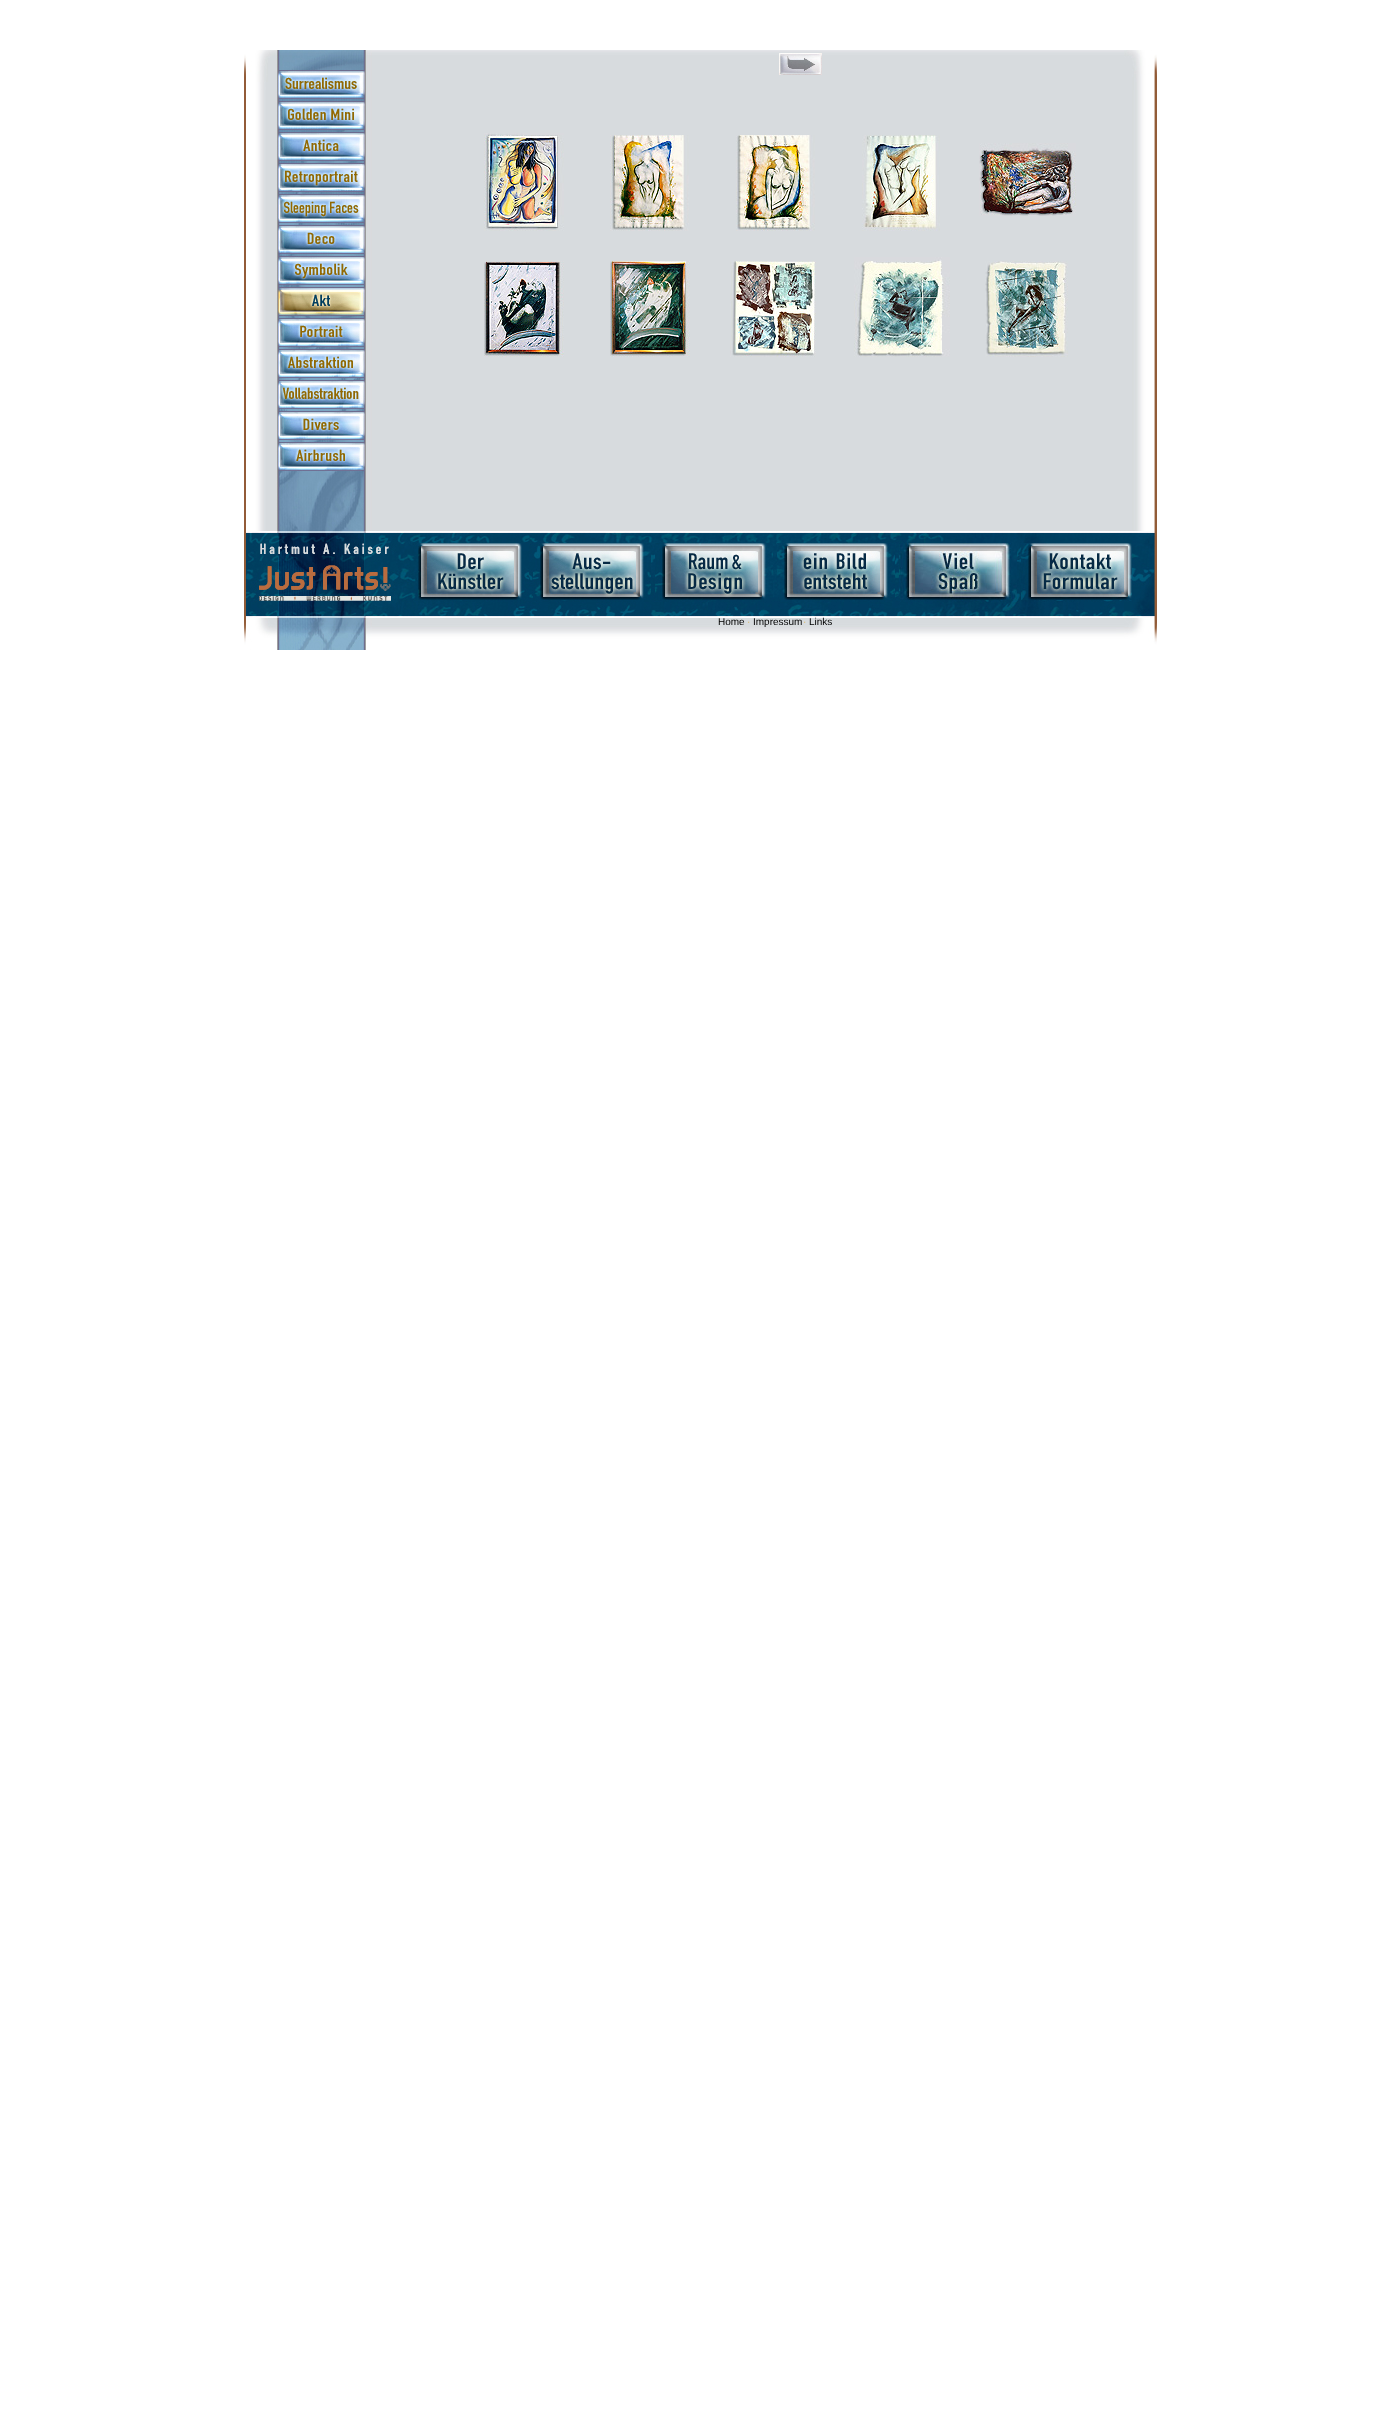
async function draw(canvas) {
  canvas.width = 1400;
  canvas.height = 2423;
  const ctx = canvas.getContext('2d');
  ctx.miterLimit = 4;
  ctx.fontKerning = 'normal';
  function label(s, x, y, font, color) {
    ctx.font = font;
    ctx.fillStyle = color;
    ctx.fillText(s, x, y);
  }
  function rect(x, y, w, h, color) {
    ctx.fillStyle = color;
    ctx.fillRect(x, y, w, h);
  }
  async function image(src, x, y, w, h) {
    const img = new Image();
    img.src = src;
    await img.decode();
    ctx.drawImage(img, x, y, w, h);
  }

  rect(0, 0, 1400, 2423, '#fff');
  await image('assets/img1.png', 244, 50, 913, 600);
  await image('assets/img2.png', 779, 53, 43, 22);
  await image('assets/img3.png', 278, 70, 87, 29);
  await image('assets/img4.png', 278, 101, 87, 29);
  await image('assets/img5.png', 278, 132, 87, 29);
  await image('assets/img6.png', 278, 163, 87, 29);
  await image('assets/img7.png', 278, 194, 87, 29);
  await image('assets/img8.png', 278, 225, 87, 29);
  await image('assets/img9.png', 278, 256, 87, 29);
  await image('assets/img10.png', 278, 287, 87, 29);
  await image('assets/img11.png', 278, 318, 87, 29);
  await image('assets/img12.png', 278, 349, 87, 29);
  await image('assets/img13.png', 278, 380, 87, 29);
  await image('assets/img14.png', 278, 411, 87, 29);
  await image('assets/img15.png', 278, 442, 87, 29);
  await image('assets/img16.png', 484, 133, 80, 98);
  await image('assets/img17.png', 610, 135, 79, 96);
  await image('assets/img18.png', 736, 135, 79, 96);
  await image('assets/img19.png', 862, 135, 78, 96);
  await image('assets/img20.png', 979, 143, 97, 73);
  await image('assets/img21.png', 484, 261, 80, 96);
  await image('assets/img22.png', 610, 261, 80, 96);
  await image('assets/img23.png', 730, 261, 86, 96);
  await image('assets/img24.png', 854, 257, 96, 100);
  await image('assets/img25.png', 985, 261, 83, 96);
  await image('assets/img26.png', 418, 543, 111, 57);
  await image('assets/img27.png', 533, 543, 118, 57);
  await image('assets/img28.png', 655, 543, 118, 57);
  await image('assets/img29.png', 777, 543, 118, 57);
  await image('assets/img30.png', 899, 543, 118, 57);
  await image('assets/img31.png', 1021, 543, 111, 57);
  label('Home', 718, 625, '10px Liberation Sans', '#000');
  label('·', 747, 625, '10px Liberation Sans', '#dbb258');
  label('Impressum', 753, 625, '10px Liberation Sans', '#000');
  label('·', 803, 625, '10px Liberation Sans', '#dbb258');
  label('Links', 809, 625, '10px Liberation Sans', '#000');
}

draw(document.querySelector('canvas'));
